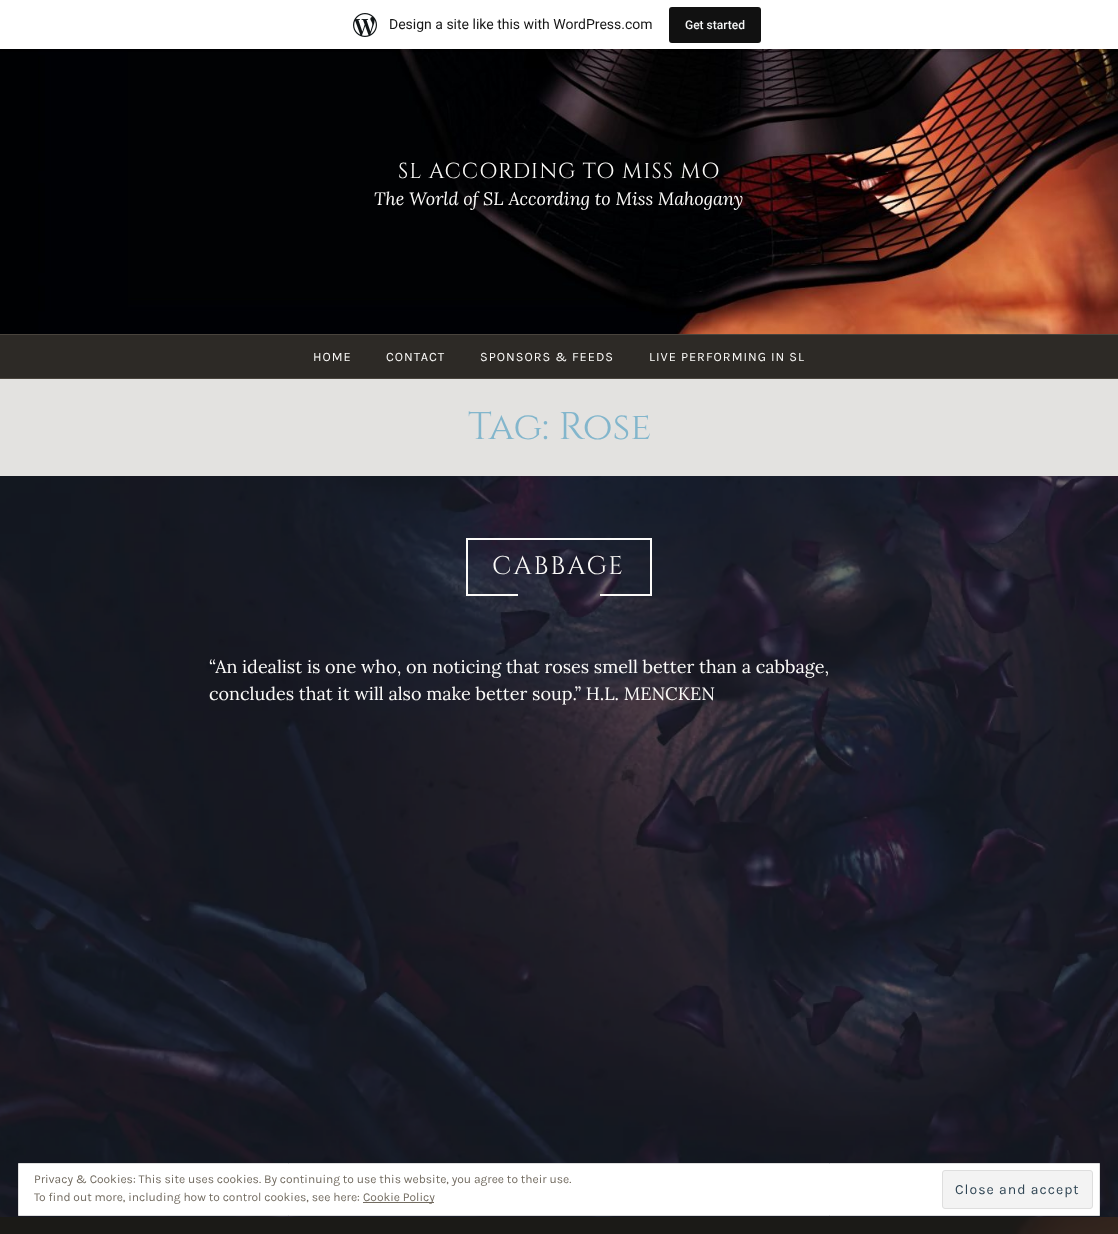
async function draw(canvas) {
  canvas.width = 1118;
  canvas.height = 1234;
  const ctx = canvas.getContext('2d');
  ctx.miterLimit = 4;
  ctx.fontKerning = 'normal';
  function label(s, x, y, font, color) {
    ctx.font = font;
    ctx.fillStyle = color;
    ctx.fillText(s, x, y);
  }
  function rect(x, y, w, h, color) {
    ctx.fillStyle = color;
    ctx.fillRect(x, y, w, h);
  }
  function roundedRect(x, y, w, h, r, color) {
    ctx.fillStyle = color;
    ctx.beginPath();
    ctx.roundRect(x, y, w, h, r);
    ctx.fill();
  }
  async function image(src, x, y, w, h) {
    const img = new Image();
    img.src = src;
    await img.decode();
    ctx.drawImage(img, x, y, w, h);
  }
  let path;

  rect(0, 0, 1118, 1234, '#e3e2e0');
  await image('assets/img2.png', 0, 49, 1118, 285);
  ctx.fillStyle = '#0000000d';
  ctx.filter = 'blur(1px)';
  ctx.beginPath();
  ctx.rect(0, 1, 1118, 49);
  ctx.fill();
  ctx.filter = 'none';
  ctx.fillStyle = '#00000014';
  path = new Path2D('M1 49V52H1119V3H1118V49Z');
  ctx.fill(path);
  rect(0, 0, 1118, 49, '#fff');
  await image('assets/img1.png', 353, 13, 24, 24);
  label('Design a site like this with WordPress.com', 389, 29, '14px Roboto', '#171717');
  roundedRect(669, 7, 92, 36, 3, '#111');
  label('Get started', 685, 29, '500 12px Roboto', '#f6f7f7');
  ctx.letterSpacing = '1px';
  label('SL ACCORDING TO MISS MO', 398, 178, '21.6px Cinzel', '#fcfbf9');
  ctx.letterSpacing = '0px';
  label('The World of SL According to Miss Mahogany', 374, 205, 'italic 18px Lora', '#fcfbf9');
  rect(0, 335, 1118, 43, '#2d2a26');
  rect(0, 334, 1118, 1, '#49443d');
  rect(0, 378, 1118, 1, '#49443d');
  ctx.letterSpacing = '1px';
  label('HOME', 313, 361, '12.75px Karla', '#fcfbf9');
  label('CONTACT', 386, 361, '12.75px Karla', '#fcfbf9');
  label('SPONSORS & FEEDS', 480, 361, '12.75px Karla', '#fcfbf9');
  label('LIVE PERFORMING IN SL', 649, 361, '12.75px Karla', '#fcfbf9');
  ctx.letterSpacing = '0px';
  label('Tag: Rose', 468, 439, '38.5px Cinzel', '#83b6cc');
  rect(0, 476, 1118, 741, '#1f2b30');
  await image('assets/img3.png', 0, 476, 1118, 741);
  rect(466, 538, 186, 2, '#fcfbf9');
  rect(650, 538, 2, 58, '#fcfbf9');
  rect(466, 538, 2, 58, '#fcfbf9');
  ctx.letterSpacing = '2px';
  label('CABBAGE', 492, 574, '25.5px Cinzel', '#fcfbf9');
  rect(468, 594, 50, 2, '#fcfbf9');
  rect(600, 594, 50, 2, '#fcfbf9');
  ctx.letterSpacing = '0px';
  label('“An idealist is one who, on noticing that roses smell better than a cabbage,', 209, 673, '18px Lora', '#fcfbf9');
  label('concludes that it will also make better soup.” H.L. MENCKEN', 209, 700, '18px Lora', '#fcfbf9');
  await image('assets/img4.png', 0, 1217, 1118, 17);
  ctx.fillStyle = '#fff';
  ctx.beginPath();
  ctx.rect(18.5, 1163.5, 1081, 52);
  ctx.fill();
  ctx.strokeStyle = '#dedede';
  ctx.stroke();
  label('Privacy & Cookies: This site uses cookies. By continuing to use this website, you agree to their use.', 34, 1183, '12px Karla', '#726b60');
  label('To find out more, including how to control cookies, see here:', 34, 1201, '12px Karla', '#726b60');
  rect(363, 1202, 71, 1, '#726b60');
  label('Cookie Policy', 363, 1201, '12px Karla', '#726b60');
  ctx.fillStyle = '#f3f3f3';
  ctx.beginPath();
  ctx.roundRect(942.5, 1170.5, 150, 38, 2.5);
  ctx.fill();
  ctx.stroke();
  ctx.letterSpacing = '1px';
  label('Close and accept', 955, 1194, '14px Karla', '#2e4453');
}

draw(document.querySelector('canvas'));
